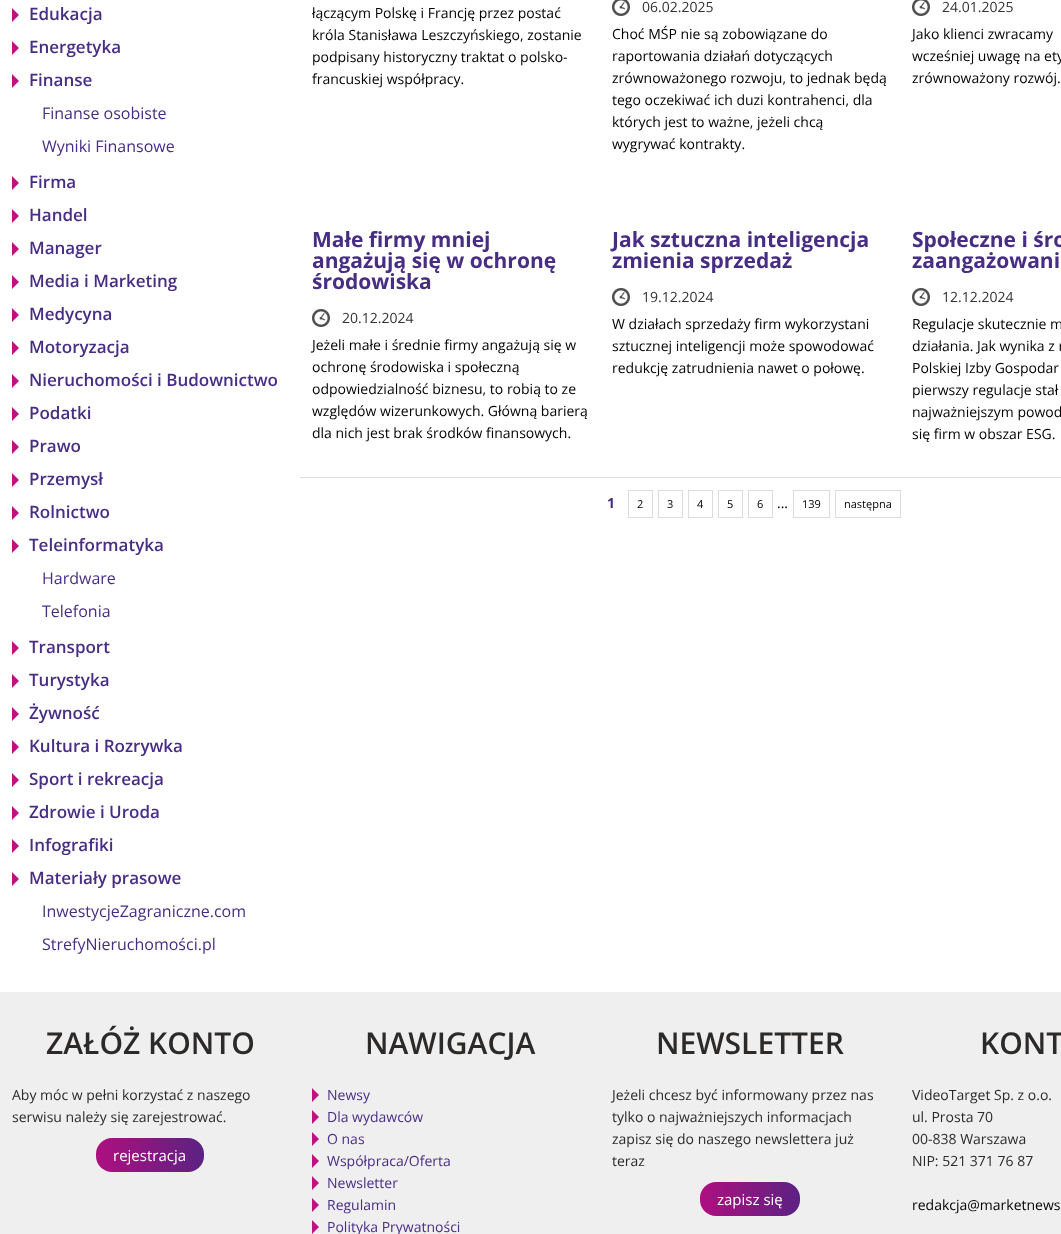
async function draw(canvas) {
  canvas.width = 1061;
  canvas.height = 1234;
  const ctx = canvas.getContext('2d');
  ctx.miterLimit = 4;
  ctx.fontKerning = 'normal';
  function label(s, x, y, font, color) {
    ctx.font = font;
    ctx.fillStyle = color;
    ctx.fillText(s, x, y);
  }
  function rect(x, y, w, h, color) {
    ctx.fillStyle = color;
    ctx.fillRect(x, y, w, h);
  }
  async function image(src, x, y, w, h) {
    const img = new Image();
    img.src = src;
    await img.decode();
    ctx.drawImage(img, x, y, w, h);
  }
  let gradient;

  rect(0, 0, 1061, 1234, '#fff');
  await image('assets/img1.png', 12, 8, 7, 14);
  label('Edukacja', 29, 20, '600 17px Open Sans', '#482d84');
  await image('assets/img1.png', 12, 41, 7, 14);
  label('Energetyka', 29, 53, '600 17px Open Sans', '#482d84');
  await image('assets/img1.png', 12, 74, 7, 14);
  label('Finanse', 29, 86, '600 17px Open Sans', '#482d84');
  label('Finanse osobiste', 42, 119, '16px Open Sans', '#482d84');
  label('Wyniki Finansowe', 42, 152, '16px Open Sans', '#482d84');
  await image('assets/img1.png', 12, 176, 7, 14);
  label('Firma', 29, 188, '600 17px Open Sans', '#482d84');
  await image('assets/img1.png', 12, 209, 7, 14);
  label('Handel', 29, 221, '600 17px Open Sans', '#482d84');
  await image('assets/img1.png', 12, 242, 7, 14);
  label('Manager', 29, 254, '600 17px Open Sans', '#482d84');
  await image('assets/img1.png', 12, 275, 7, 14);
  label('Media i Marketing', 29, 287, '600 17px Open Sans', '#482d84');
  await image('assets/img1.png', 12, 308, 7, 14);
  label('Medycyna', 29, 320, '600 17px Open Sans', '#482d84');
  await image('assets/img1.png', 12, 341, 7, 14);
  label('Motoryzacja', 29, 353, '600 17px Open Sans', '#482d84');
  await image('assets/img1.png', 12, 374, 7, 14);
  label('Nieruchomości i Budownictwo', 29, 386, '600 17px Open Sans', '#482d84');
  await image('assets/img1.png', 12, 407, 7, 14);
  label('Podatki', 29, 419, '600 17px Open Sans', '#482d84');
  await image('assets/img1.png', 12, 440, 7, 14);
  label('Prawo', 29, 452, '600 17px Open Sans', '#482d84');
  await image('assets/img1.png', 12, 473, 7, 14);
  label('Przemysł', 29, 485, '600 17px Open Sans', '#482d84');
  await image('assets/img1.png', 12, 506, 7, 14);
  label('Rolnictwo', 29, 518, '600 17px Open Sans', '#482d84');
  await image('assets/img1.png', 12, 539, 7, 14);
  label('Teleinformatyka', 29, 551, '600 17px Open Sans', '#482d84');
  label('Hardware', 42, 584, '16px Open Sans', '#482d84');
  label('Telefonia', 42, 617, '16px Open Sans', '#482d84');
  await image('assets/img1.png', 12, 641, 7, 14);
  label('Transport', 29, 653, '600 17px Open Sans', '#482d84');
  await image('assets/img1.png', 12, 674, 7, 14);
  label('Turystyka', 29, 686, '600 17px Open Sans', '#482d84');
  await image('assets/img1.png', 12, 707, 7, 14);
  label('Żywność', 29, 719, '600 17px Open Sans', '#482d84');
  await image('assets/img1.png', 12, 740, 7, 14);
  label('Kultura i Rozrywka', 29, 752, '600 17px Open Sans', '#482d84');
  await image('assets/img1.png', 12, 773, 7, 14);
  label('Sport i rekreacja', 29, 785, '600 17px Open Sans', '#482d84');
  await image('assets/img1.png', 12, 806, 7, 14);
  label('Zdrowie i Uroda', 29, 818, '600 17px Open Sans', '#482d84');
  await image('assets/img1.png', 12, 839, 7, 14);
  label('Infografiki', 29, 851, '600 17px Open Sans', '#482d84');
  await image('assets/img1.png', 12, 872, 7, 14);
  label('Materiały prasowe', 29, 884, '600 17px Open Sans', '#482d84');
  label('InwestycjeZagraniczne.com', 42, 917, '16px Open Sans', '#482d84');
  label('StrefyNieruchomości.pl', 42, 950, '16px Open Sans', '#482d84');
  label('łączącym Polskę i Francję przez postać', 312, 18, '14px Open Sans', '#000');
  label('króla Stanisława Leszczyńskiego, zostanie', 312, 40, '14px Open Sans', '#000');
  label('podpisany historyczny traktat o polsko-', 312, 62, '14px Open Sans', '#000');
  label('francuskiej współpracy.', 312, 84, '14px Open Sans', '#000');
  await image('assets/img2.png', 612, 0, 18, 16);
  label('06.02.2025', 642, 12, '14px Open Sans', '#333');
  label('Choć MŚP nie są zobowiązane do', 612, 39, '14px Open Sans', '#000');
  label('raportowania działań dotyczących', 612, 61, '14px Open Sans', '#000');
  label('zrównoważonego rozwoju, to jednak będą', 612, 83, '14px Open Sans', '#000');
  label('tego oczekiwać ich duzi kontrahenci, dla', 612, 105, '14px Open Sans', '#000');
  label('których jest to ważne, jeżeli chcą', 612, 127, '14px Open Sans', '#000');
  label('wygrywać kontrakty.', 612, 149, '14px Open Sans', '#000');
  await image('assets/img2.png', 912, 0, 18, 16);
  label('24.01.2025', 942, 12, '14px Open Sans', '#333');
  label('Jako klienci zwracamy', 912, 39, '14px Open Sans', '#000');
  label('wcześniej uwagę na ety', 912, 61, '14px Open Sans', '#000');
  label('zrównoważony rozwój.', 912, 83, '14px Open Sans', '#000');
  label('Małe firmy mniej', 312, 247, 'bold 21px Open Sans', '#482d84');
  label('angażują się w ochronę', 312, 268, 'bold 21px Open Sans', '#482d84');
  label('środowiska', 312, 289, 'bold 21px Open Sans', '#482d84');
  await image('assets/img3.png', 312, 309, 18, 18);
  label('20.12.2024', 342, 323, '14px Open Sans', '#333');
  label('Jeżeli małe i średnie firmy angażują się w', 312, 350, '14px Open Sans', '#000');
  label('ochronę środowiska i społeczną', 312, 372, '14px Open Sans', '#000');
  label('odpowiedzialność biznesu, to robią to ze', 312, 394, '14px Open Sans', '#000');
  label('względów wizerunkowych. Główną barierą', 312, 416, '14px Open Sans', '#000');
  label('dla nich jest brak środków finansowych.', 312, 438, '14px Open Sans', '#000');
  label('Jak sztuczna inteligencja', 612, 247, 'bold 21px Open Sans', '#482d84');
  label('zmienia sprzedaż', 612, 268, 'bold 21px Open Sans', '#482d84');
  await image('assets/img3.png', 612, 288, 18, 18);
  label('19.12.2024', 642, 302, '14px Open Sans', '#333');
  label('W działach sprzedaży firm wykorzystani', 612, 329, '14px Open Sans', '#000');
  label('sztucznej inteligencji może spowodować', 612, 351, '14px Open Sans', '#000');
  label('redukcję zatrudnienia nawet o połowę.', 612, 373, '14px Open Sans', '#000');
  label('Społeczne i śro', 912, 247, 'bold 21px Open Sans', '#482d84');
  label('zaangażowani', 912, 268, 'bold 21px Open Sans', '#482d84');
  await image('assets/img3.png', 912, 288, 18, 18);
  label('12.12.2024', 942, 302, '14px Open Sans', '#333');
  label('Regulacje skutecznie m', 912, 329, '14px Open Sans', '#000');
  label('działania. Jak wynika z r', 912, 351, '14px Open Sans', '#000');
  label('Polskiej Izby Gospodar', 912, 373, '14px Open Sans', '#000');
  label('pierwszy regulacje stał', 912, 395, '14px Open Sans', '#000');
  label('najważniejszym powod', 912, 417, '14px Open Sans', '#000');
  label('się firm w obszar ESG.', 912, 439, '14px Open Sans', '#000');
  rect(300, 477, 761, 1, '#ddd');
  label('1', 607, 508, 'bold 14px Open Sans', '#482d84');
  ctx.strokeStyle = '#ddd';
  ctx.strokeRect(628.5, 490.5, 24, 27);
  label('2', 637, 508, '11px Open Sans', '#000');
  ctx.strokeRect(658.5, 490.5, 24, 27);
  label('3', 667, 508, '11px Open Sans', '#000');
  ctx.strokeRect(688.5, 490.5, 24, 27);
  label('4', 697, 508, '11px Open Sans', '#000');
  ctx.strokeRect(718.5, 490.5, 24, 27);
  label('5', 727, 508, '11px Open Sans', '#000');
  ctx.strokeRect(748.5, 490.5, 24, 27);
  label('6', 757, 508, '11px Open Sans', '#000');
  label('...', 777, 508, '14px Open Sans', '#000');
  ctx.strokeRect(793.5, 490.5, 36, 27);
  label('139', 802, 508, '11px Open Sans', '#000');
  ctx.strokeRect(835.5, 490.5, 65, 27);
  label('następna', 844, 508, '11px Open Sans', '#000');
  rect(0, 992, 1061, 242, '#f0efef');
  label('ZAŁÓŻ KONTO', 46, 1054, '600 30px Open Sans', '#2b2a29');
  label('Aby móc w pełni korzystać z naszego', 12, 1100, '14px Open Sans', '#2b2a29');
  label('serwisu należy się zarejestrować.', 12, 1122, '14px Open Sans', '#2b2a29');
  gradient = ctx.createLinearGradient(96, 1155, 204, 1155);
  gradient.addColorStop(0, '#ae0f80');
  gradient.addColorStop(1, '#5b2282');
  ctx.fillStyle = gradient;
  ctx.beginPath();
  ctx.roundRect(96, 1138, 108, 34, 16);
  ctx.fill();
  label('rejestracja', 113, 1161, '15px Open Sans', '#fff');
  label('NAWIGACJA', 365, 1054, '600 30px Open Sans', '#2b2a29');
  await image('assets/img4.png', 312, 1088, 7, 14);
  label('Newsy', 327, 1100, '14px Open Sans', '#482d84');
  await image('assets/img4.png', 312, 1110, 7, 14);
  label('Dla wydawców', 327, 1122, '14px Open Sans', '#482d84');
  await image('assets/img4.png', 312, 1132, 7, 14);
  label('O nas', 327, 1144, '14px Open Sans', '#482d84');
  await image('assets/img4.png', 312, 1154, 7, 14);
  label('Współpraca/Oferta', 327, 1166, '14px Open Sans', '#482d84');
  await image('assets/img4.png', 312, 1176, 7, 14);
  label('Newsletter', 327, 1188, '14px Open Sans', '#482d84');
  await image('assets/img4.png', 312, 1198, 7, 14);
  label('Regulamin', 327, 1210, '14px Open Sans', '#482d84');
  await image('assets/img4.png', 312, 1220, 7, 14);
  label('Polityka Prywatności', 327, 1232, '14px Open Sans', '#482d84');
  label('NEWSLETTER', 656, 1054, '600 30px Open Sans', '#2b2a29');
  label('Jeżeli chcesz być informowany przez nas', 612, 1100, '14px Open Sans', '#2b2a29');
  label('tylko o najważniejszych informacjach', 612, 1122, '14px Open Sans', '#2b2a29');
  label('zapisz się do naszego newslettera już', 612, 1144, '14px Open Sans', '#2b2a29');
  label('teraz', 612, 1166, '14px Open Sans', '#2b2a29');
  gradient = ctx.createLinearGradient(700, 1199, 800, 1199);
  gradient.addColorStop(0, '#ae0f80');
  gradient.addColorStop(1, '#5b2282');
  ctx.fillStyle = gradient;
  ctx.beginPath();
  ctx.roundRect(700, 1182, 100, 34, 16);
  ctx.fill();
  label('zapisz się', 717, 1205, '15px Open Sans', '#fff');
  label('KONT', 980, 1054, '600 30px Open Sans', '#2b2a29');
  label('VideoTarget Sp. z o.o.', 912, 1100, '14px Open Sans', '#2b2a29');
  label('ul. Prosta 70', 912, 1122, '14px Open Sans', '#2b2a29');
  label('00-838 Warszawa', 912, 1144, '14px Open Sans', '#2b2a29');
  label('NIP: 521 371 76 87', 912, 1166, '14px Open Sans', '#2b2a29');
  label('redakcja@marketnews', 912, 1210, '14px Open Sans', '#000');
}

draw(document.querySelector('canvas'));
